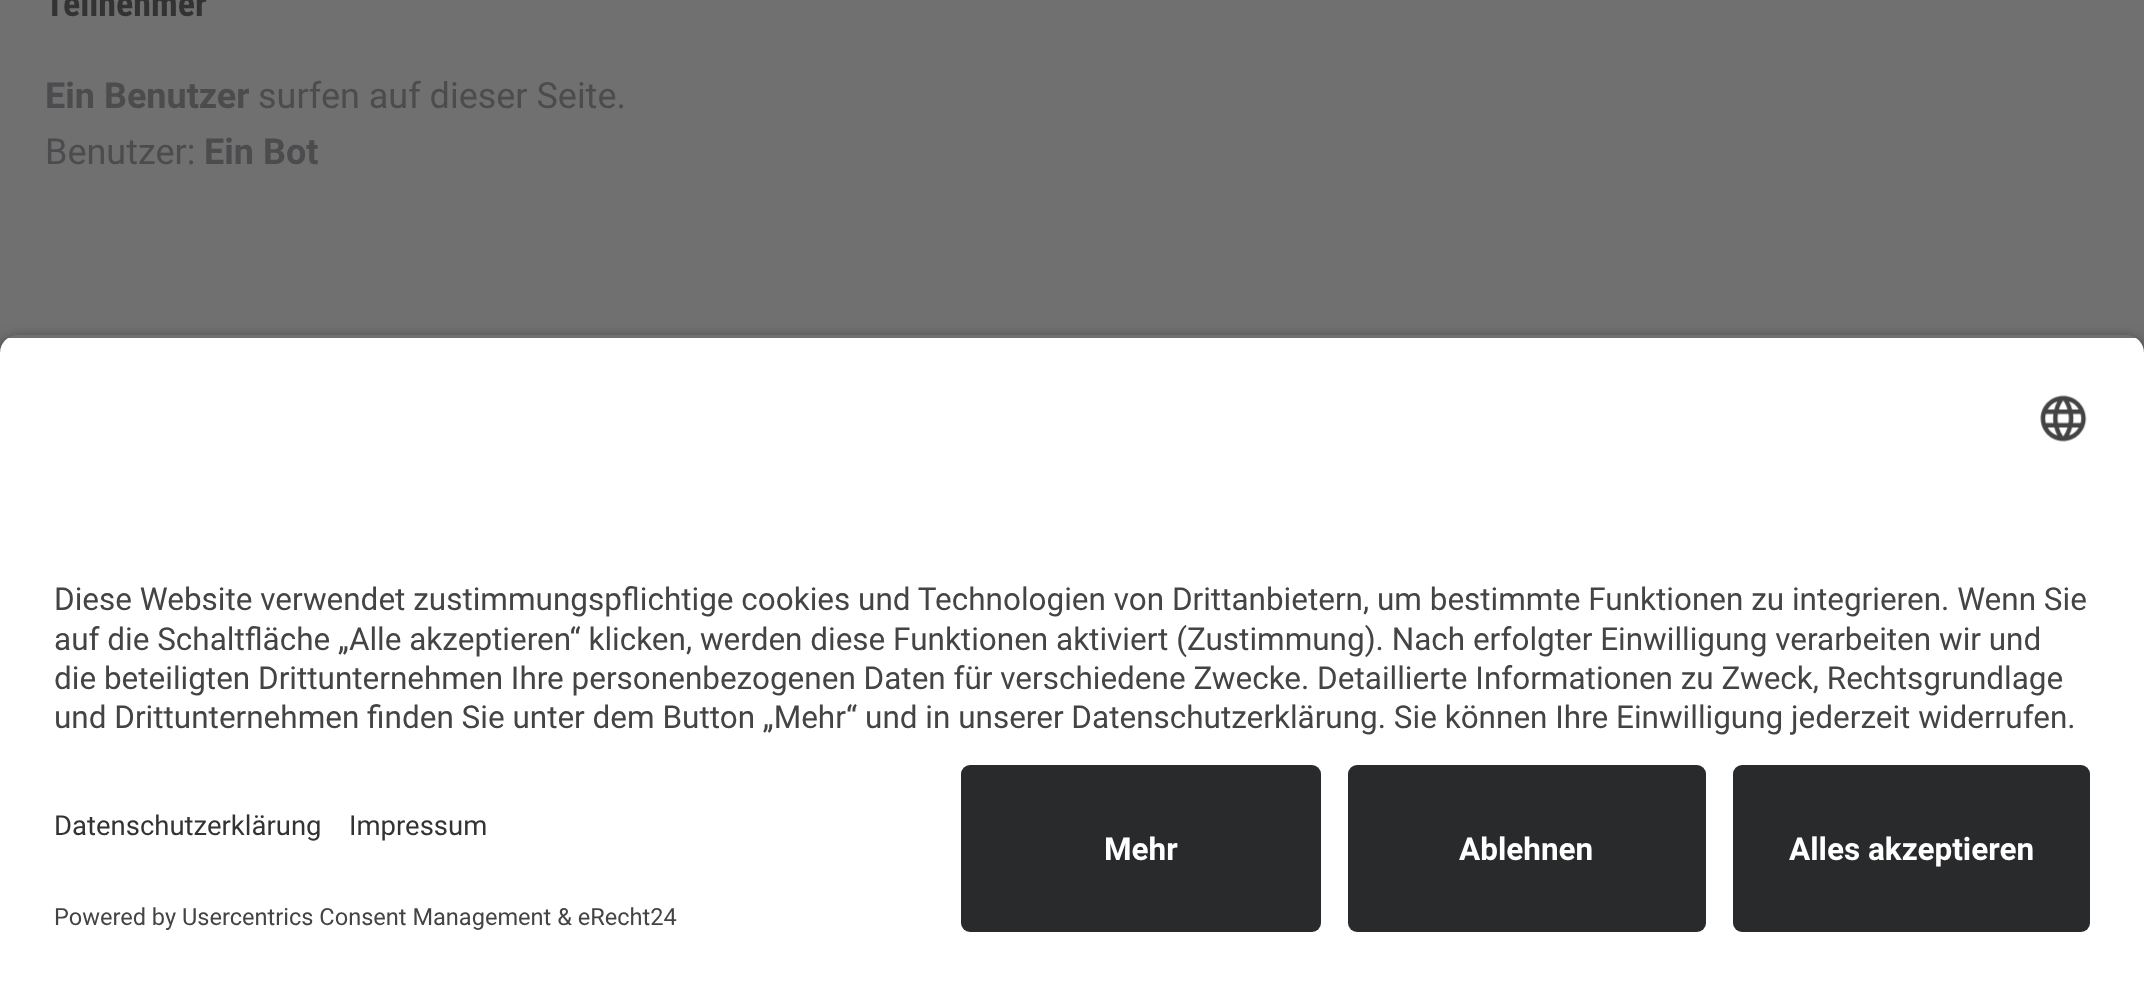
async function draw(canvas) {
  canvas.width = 2144;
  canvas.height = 984;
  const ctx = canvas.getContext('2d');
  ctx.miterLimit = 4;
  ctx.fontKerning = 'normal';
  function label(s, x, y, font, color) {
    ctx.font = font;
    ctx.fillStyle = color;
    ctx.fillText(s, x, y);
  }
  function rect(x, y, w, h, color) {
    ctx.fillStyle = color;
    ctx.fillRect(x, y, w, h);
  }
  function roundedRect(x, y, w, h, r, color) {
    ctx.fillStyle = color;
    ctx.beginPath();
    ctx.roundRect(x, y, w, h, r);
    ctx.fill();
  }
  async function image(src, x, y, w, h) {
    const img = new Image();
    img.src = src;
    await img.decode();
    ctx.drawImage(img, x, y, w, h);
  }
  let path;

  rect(0, 0, 2144, 984, '#707070');
  label('Teilnehmer', 45, 16, 'bold 36px Roboto Condensed', '#333');
  label('Ein Benutzer', 45, 108, 'bold 36px Roboto', '#4c4c4e');
  label('surfen auf dieser Seite.', 258, 108, '36px Roboto', '#4c4c4e');
  label('Benutzer:', 45, 164, '36px Roboto', '#4c4c4e');
  label('Ein Bot', 204, 164, 'bold 36px Roboto', '#4c4c4e');
  ctx.save();
  path = new Path2D('M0 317H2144V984H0ZM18 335H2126C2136 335 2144 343 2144 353V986H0V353C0 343 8 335 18 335Z');
  ctx.clip(path, 'evenodd');
  ctx.fillStyle = '#000000cc';
  ctx.filter = 'blur(8px)';
  ctx.beginPath();
  ctx.roundRect(0, 342, 2144, 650, 18);
  ctx.fill();
  ctx.filter = 'none';
  ctx.restore();
  ctx.save();
  ctx.beginPath();
  ctx.roundRect(0, 335, 2144, 412, [18, 18, 0, 0]);
  ctx.clip();
  rect(0, 338, 2144, 409, '#fff');
  ctx.restore();
  await image('assets/img1.png', 2040, 395, 47, 47);
  label('Diese Website verwendet zustimmungspflichtige cookies und Technologien von Drittanbietern, um bestimmte Funktionen zu integrieren. Wenn Sie', 54, 610, '31.5px Roboto', '#444');
  label('auf die Schaltfläche „Alle akzeptieren“ klicken, werden diese Funktionen aktiviert (Zustimmung). Nach erfolgter Einwilligung verarbeiten wir und', 54, 650, '31.5px Roboto', '#444');
  label('die beteiligten Drittunternehmen Ihre personenbezogenen Daten für verschiedene Zwecke. Detaillierte Informationen zu Zweck, Rechtsgrundlage', 54, 689, '31.5px Roboto', '#444');
  label('und Drittunternehmen finden Sie unter dem Button „Mehr“ und in unserer Datenschutzerklärung. Sie können Ihre Einwilligung jederzeit widerrufen.', 54, 728, '31.5px Roboto', '#444');
  rect(0, 747, 2144, 237, '#fff');
  label('Datenschutzerklärung', 54, 835, '27.5px Roboto', '#333');
  label('Impressum', 349, 835, '27.5px Roboto', '#333');
  label('Powered by Usercentrics Consent Management & eRecht24', 54, 925, '23.6px Roboto', '#444');
  roundedRect(961, 765, 360, 167, 9, '#292a2b');
  label('Mehr', 1104, 860, 'bold 31.5px Roboto', '#fff');
  roundedRect(1348, 765, 358, 167, 9, '#292a2b');
  label('Ablehnen', 1459, 860, 'bold 31.5px Roboto', '#fff');
  roundedRect(1733, 765, 357, 167, 9, '#292a2b');
  label('Alles akzeptieren', 1789, 860, 'bold 31.5px Roboto', '#fff');
}

draw(document.querySelector('canvas'));
